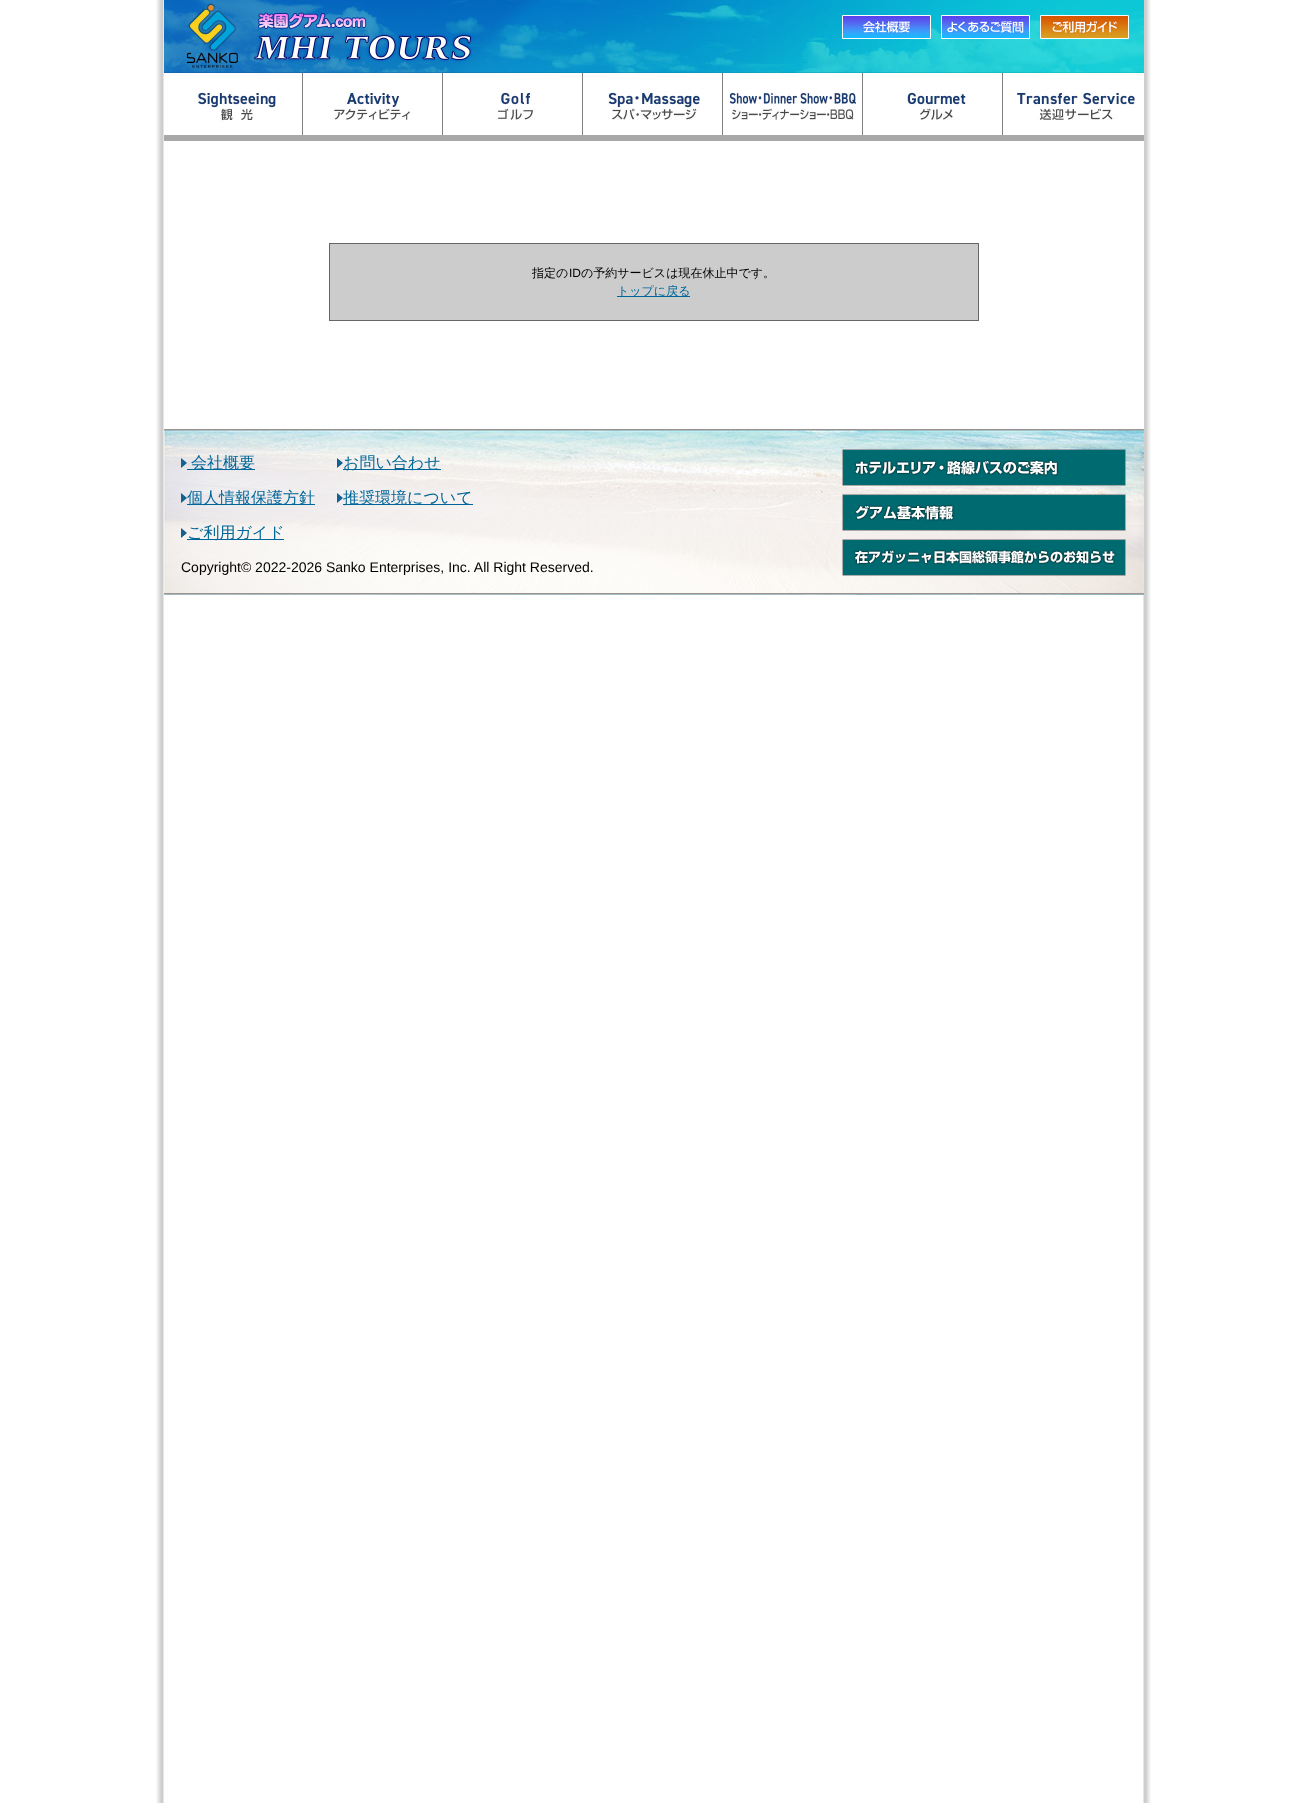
async function draw(canvas) {
  canvas.width = 1307;
  canvas.height = 1803;
  const ctx = canvas.getContext('2d');
  ctx.miterLimit = 4;
  ctx.fontKerning = 'normal';
  function label(s, x, y, font, color) {
    ctx.font = font;
    ctx.fillStyle = color;
    ctx.fillText(s, x, y);
  }
  function rect(x, y, w, h, color) {
    ctx.fillStyle = color;
    ctx.fillRect(x, y, w, h);
  }
  async function image(src, x, y, w, h) {
    const img = new Image();
    img.src = src;
    await img.decode();
    ctx.drawImage(img, x, y, w, h);
  }

  rect(0, 0, 1307, 1803, '#fff');
  await image('assets/img1.png', 156, 0, 995, 1803);
  rect(1143, 73, 1, 356, '#fff');
  await image('assets/img2.png', 164, 0, 650, 73);
  await image('assets/img3.png', 814, 0, 330, 73);
  await image('assets/img4.png', 842, 15, 89, 24);
  await image('assets/img5.png', 941, 15, 89, 24);
  await image('assets/img6.png', 1040, 15, 89, 24);
  await image('assets/img7.png', 164, 73, 139, 62);
  await image('assets/img8.png', 303, 73, 140, 62);
  await image('assets/img9.png', 443, 73, 140, 62);
  await image('assets/img10.png', 583, 73, 140, 62);
  await image('assets/img11.png', 723, 73, 140, 62);
  await image('assets/img12.png', 863, 73, 140, 62);
  await image('assets/img13.png', 1003, 73, 140, 47);
  rect(164, 135, 980, 6, '#a8a8a8');
  rect(329, 243, 650, 78, '#666');
  rect(330, 244, 648, 76, '#ccc');
  label('指定の', 532, 277, '500 12px WenQuanYi Zen Hei', '#000');
  label('ID', 569, 277, '12px Liberation Sans', '#000');
  label('の予約サービスは現在休止中です。', 581, 277, '500 12px WenQuanYi Zen Hei', '#000');
  rect(617, 296, 73, 1, '#069');
  label('トップに戻る', 617, 295, '500 12px WenQuanYi Zen Hei', '#069');
  await image('assets/img14.png', 164, 429, 980, 166);
  await image('assets/img15.png', 181, 458, 6, 10);
  rect(187, 469, 68, 1, '#069');
  label('会社概要', 191, 468, '500 16px WenQuanYi Zen Hei', '#069');
  await image('assets/img16.png', 337, 458, 6, 10);
  rect(343, 469, 98, 1, '#069');
  label('お問い合わせ', 343, 468, '500 16px WenQuanYi Zen Hei', '#069');
  await image('assets/img17.png', 181, 493, 6, 10);
  rect(187, 504, 128, 1, '#069');
  label('個人情報保護方針', 187, 503, '500 16px WenQuanYi Zen Hei', '#069');
  await image('assets/img18.png', 337, 493, 6, 10);
  rect(343, 504, 130, 1, '#069');
  label('推奨環境について', 343, 503, '500 16px WenQuanYi Zen Hei', '#069');
  await image('assets/img19.png', 181, 528, 6, 10);
  rect(187, 539, 97, 1, '#069');
  label('ご利用ガイド', 187, 538, '500 16px WenQuanYi Zen Hei', '#069');
  label('Copyright© 2022-2026 Sanko Enterprises, Inc. All Right Reserved.', 181, 572, '14px Liberation Sans', '#000');
  await image('assets/img20.png', 842, 449, 284, 37);
  await image('assets/img21.png', 842, 494, 284, 37);
  await image('assets/img22.png', 842, 539, 284, 37);
}

draw(document.querySelector('canvas'));
